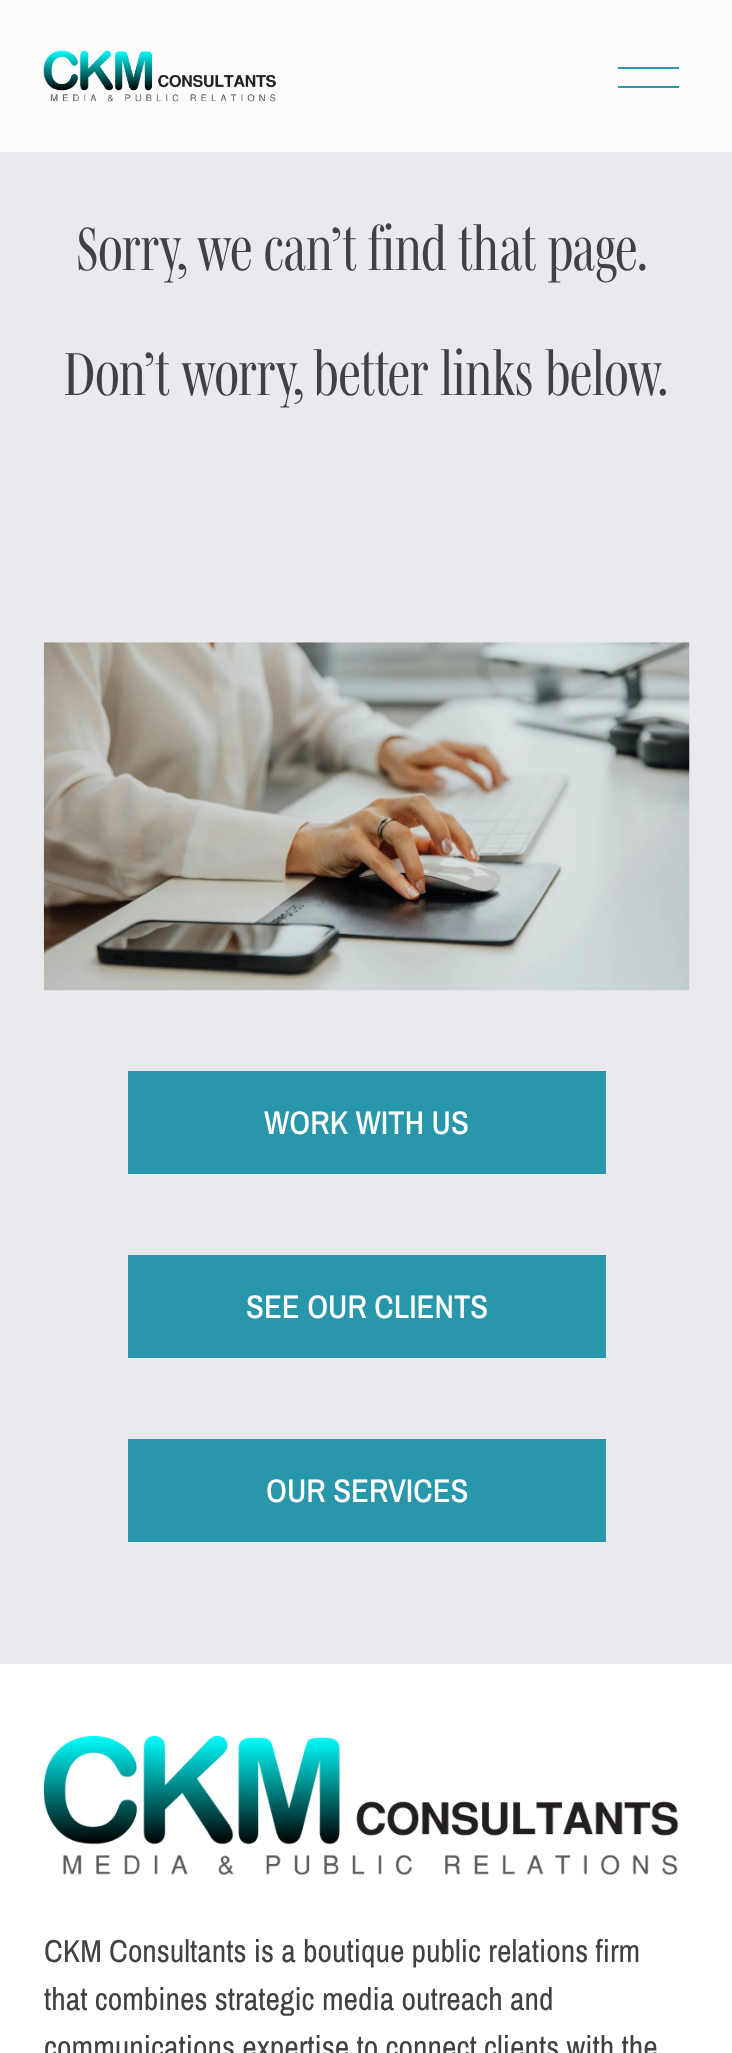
async function draw(canvas) {
  canvas.width = 732;
  canvas.height = 2053;
  const ctx = canvas.getContext('2d');
  ctx.miterLimit = 4;
  ctx.fontKerning = 'normal';
  function label(s, x, y, font, color) {
    ctx.font = font;
    ctx.fillStyle = color;
    ctx.fillText(s, x, y);
  }
  function rect(x, y, w, h, color) {
    ctx.fillStyle = color;
    ctx.fillRect(x, y, w, h);
  }
  async function image(src, x, y, w, h) {
    const img = new Image();
    img.src = src;
    await img.decode();
    ctx.drawImage(img, x, y, w, h);
  }

  rect(0, 0, 732, 2053, '#eaeaee');
  rect(0, 0, 732, 152, '#fcfcfc');
  await image('assets/img1.png', 43, 50, 233, 52);
  rect(618, 67, 61, 2, '#2997ab');
  rect(618, 86, 61, 2, '#2997ab');
  label('Sorry, we can’t find that page.', 76, 270, '62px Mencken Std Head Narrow', '#414042');
  label('Don’t worry, better links below.', 64, 395, '62px Mencken Std Head Narrow', '#414042');
  await image('assets/img2.png', 43, 642, 647, 349);
  rect(128, 1071, 478, 103, '#2997ab');
  label('WORK WITH US', 264, 1134, '500 32.75px Archivo Narrow', '#fff');
  rect(128, 1255, 478, 103, '#2997ab');
  label('SEE OUR CLIENTS', 246, 1318, '500 32.75px Archivo Narrow', '#fff');
  rect(128, 1439, 478, 103, '#2997ab');
  label('OUR SERVICES', 266, 1502, '500 32.75px Archivo Narrow', '#fff');
  rect(0, 1664, 732, 389, '#fff');
  await image('assets/img3.png', 43, 1736, 636, 140);
  label('CKM Consultants is a boutique public relations firm', 44, 1962, '31.75px Archivo Narrow', '#414042');
  label('that combines strategic media outreach and', 44, 2010, '31.75px Archivo Narrow', '#414042');
  label('communications expertise to connect clients with the', 44, 2058, '31.75px Archivo Narrow', '#414042');
}

draw(document.querySelector('canvas'));
